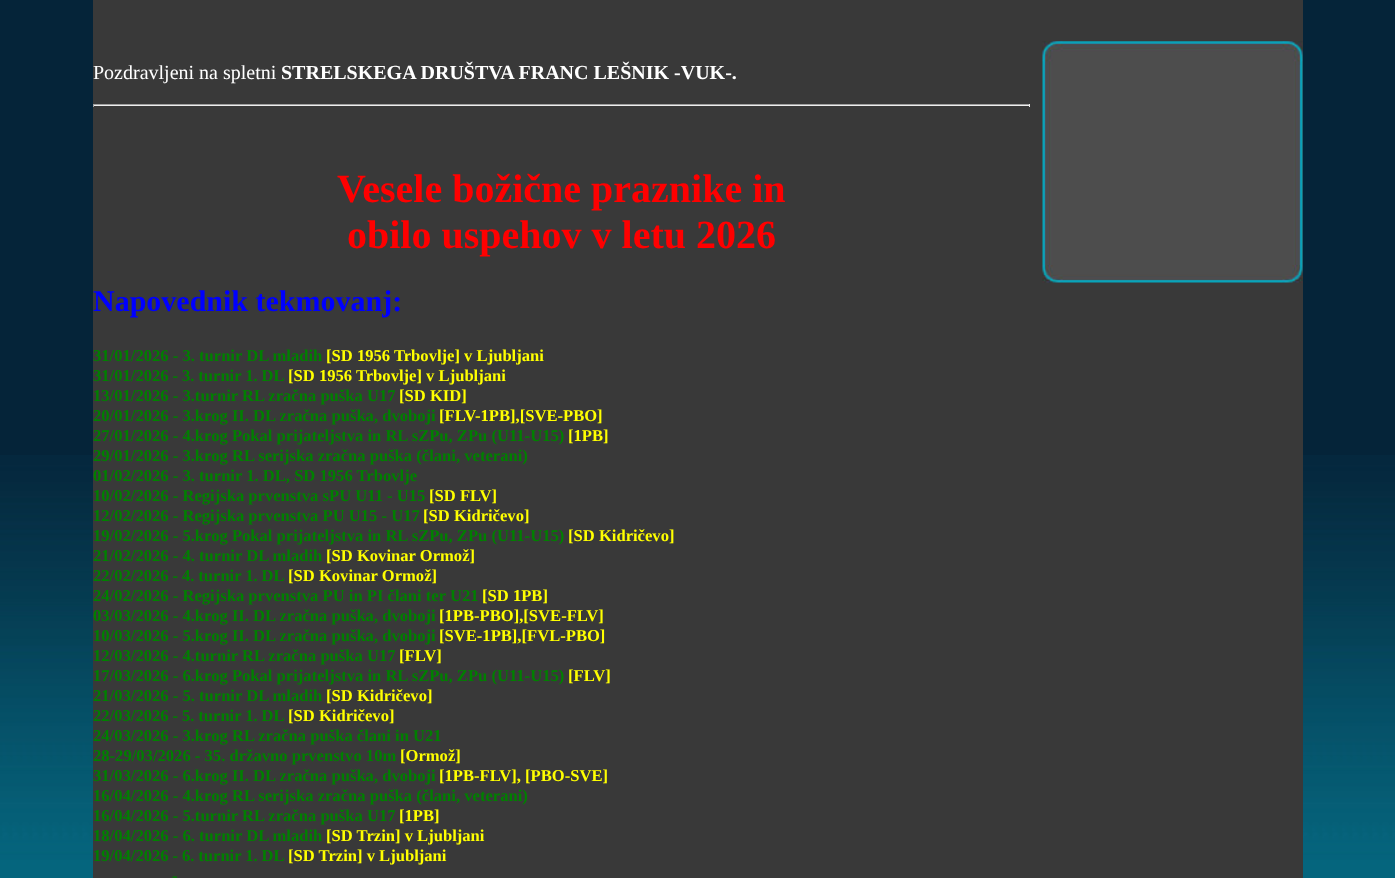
async function draw(canvas) {
  canvas.width = 1395;
  canvas.height = 878;
  const ctx = canvas.getContext('2d');
  ctx.miterLimit = 4;
  ctx.fontKerning = 'normal';
  function label(s, x, y, font, color) {
    ctx.font = font;
    ctx.fillStyle = color;
    ctx.fillText(s, x, y);
  }
  function rect(x, y, w, h, color) {
    ctx.fillStyle = color;
    ctx.fillRect(x, y, w, h);
  }
  async function image(src, x, y, w, h) {
    const img = new Image();
    img.src = src;
    await img.decode();
    ctx.drawImage(img, x, y, w, h);
  }

  rect(0, 0, 1395, 878, '#052439');
  await image('assets/img1.png', 0, 455, 1395, 423);
  rect(93, 0, 1210, 878, '#393939');
  label('Pozdravljeni na spletni', 93, 79, '20px Liberation Serif', '#fff');
  label('STRELSKEGA DRUŠTVA FRANC LEŠNIK -VUK-.', 281, 79, 'bold 20px Liberation Serif', '#fff');
  rect(93, 104, 937, 1, '#9f9f9f');
  rect(1029, 104, 1, 3, '#eee');
  rect(93, 105, 937, 1, '#eee');
  rect(93, 104, 1, 3, '#9f9f9f');
  label('Vesele božične praznike in', 337, 202, 'bold 40px Liberation Serif', '#f00');
  label('obilo uspehov v letu 2026', 347, 248, 'bold 40px Liberation Serif', '#f00');
  label('Napovednik tekmovanj:', 93, 311, 'bold 30px Liberation Serif', '#00f');
  label('31/01/2026 - 3. turnir DL mladih', 93, 361, 'bold 16.6px Liberation Serif', '#008000');
  label('[SD 1956 Trbovlje] v Ljubljani', 326, 361, 'bold 16.6px Liberation Serif', '#ff0');
  ctx.wordSpacing = '-0.25px';
  label('31/01/2026 - 3. turnir 1. DL', 93, 381, 'bold 16.6px Liberation Serif', '#008000');
  ctx.wordSpacing = '0px';
  label('[SD 1956 Trbovlje] v Ljubljani', 288, 381, 'bold 16.6px Liberation Serif', '#ff0');
  label('13/01/2026 - 3.turnir RL zračna puška U17', 93, 401, 'bold 16.6px Liberation Serif', '#008000');
  label('[SD KID]', 399, 401, 'bold 16.6px Liberation Serif', '#ff0');
  label('20/01/2026 - 3.krog II. DL zračna puška, dvoboji', 93, 421, 'bold 16.6px Liberation Serif', '#008000');
  label('[FLV-1PB],[SVE-PBO]', 439, 421, 'bold 16.6px Liberation Serif', '#ff0');
  label('27/01/2026 - 4.krog Pokal prijateljstva in RL sZPu, ZPu (U11-U15)', 93, 441, 'bold 16.6px Liberation Serif', '#008000');
  label('[1PB]', 568, 441, 'bold 16.6px Liberation Serif', '#ff0');
  label('29/01/2026 - 3.krog RL serijska zračna puška (člani, veterani)', 93, 461, 'bold 16.6px Liberation Serif', '#008000');
  label('01/02/2026 - 3. turnir 1. DL, SD 1956 Trbovlje', 93, 481, 'bold 16.6px Liberation Serif', '#008000');
  label('10/02/2026 - Regijska prvenstva sPU U11 - U15', 93, 501, 'bold 16.6px Liberation Serif', '#008000');
  label('[SD FLV]', 429, 501, 'bold 16.6px Liberation Serif', '#ff0');
  label('12/02/2026 - Regijska prvenstva PU U15 - U17', 93, 521, 'bold 16.6px Liberation Serif', '#008000');
  label('[SD Kidričevo]', 423, 521, 'bold 16.6px Liberation Serif', '#ff0');
  label('19/02/2026 - 5.krog Pokal prijateljstva in RL sZPu, ZPu (U11-U15)', 93, 541, 'bold 16.6px Liberation Serif', '#008000');
  label('[SD Kidričevo]', 568, 541, 'bold 16.6px Liberation Serif', '#ff0');
  label('21/02/2026 - 4. turnir DL mladih', 93, 561, 'bold 16.6px Liberation Serif', '#008000');
  label('[SD Kovinar Ormož]', 326, 561, 'bold 16.6px Liberation Serif', '#ff0');
  ctx.wordSpacing = '-0.25px';
  label('22/02/2026 - 4. turnir 1. DL', 93, 581, 'bold 16.6px Liberation Serif', '#008000');
  ctx.wordSpacing = '0px';
  label('[SD Kovinar Ormož]', 288, 581, 'bold 16.6px Liberation Serif', '#ff0');
  label('24/02/2026 - Regijska prvenstva PU in PI člani ter U21', 93, 601, 'bold 16.6px Liberation Serif', '#008000');
  label('[SD 1PB]', 482, 601, 'bold 16.6px Liberation Serif', '#ff0');
  label('03/03/2026 - 4.krog II. DL zračna puška, dvoboji', 93, 621, 'bold 16.6px Liberation Serif', '#008000');
  label('[1PB-PBO],[SVE-FLV]', 439, 621, 'bold 16.6px Liberation Serif', '#ff0');
  label('10/03/2026 - 5.krog II. DL zračna puška, dvoboji', 93, 641, 'bold 16.6px Liberation Serif', '#008000');
  label('[SVE-1PB],[FVL-PBO]', 439, 641, 'bold 16.6px Liberation Serif', '#ff0');
  label('12/03/2026 - 4.turnir RL zračna puška U17', 93, 661, 'bold 16.6px Liberation Serif', '#008000');
  label('[FLV]', 399, 661, 'bold 16.6px Liberation Serif', '#ff0');
  label('17/03/2026 - 6.krog Pokal prijateljstva in RL sZPu, ZPu (U11-U15)', 93, 681, 'bold 16.6px Liberation Serif', '#008000');
  label('[FLV]', 568, 681, 'bold 16.6px Liberation Serif', '#ff0');
  label('21/03/2026 - 5. turnir DL mladih', 93, 701, 'bold 16.6px Liberation Serif', '#008000');
  label('[SD Kidričevo]', 326, 701, 'bold 16.6px Liberation Serif', '#ff0');
  ctx.wordSpacing = '-0.25px';
  label('22/03/2026 - 5. turnir 1. DL', 93, 721, 'bold 16.6px Liberation Serif', '#008000');
  ctx.wordSpacing = '0px';
  label('[SD Kidričevo]', 288, 721, 'bold 16.6px Liberation Serif', '#ff0');
  label('24/03/2026 - 3.krog RL zračna puška člani in U21', 93, 741, 'bold 16.6px Liberation Serif', '#008000');
  label('28-29/03/2026 - 35. državno prvenstvo 10m', 93, 761, 'bold 16.6px Liberation Serif', '#008000');
  label('[Ormož]', 400, 761, 'bold 16.6px Liberation Serif', '#ff0');
  label('31/03/2026 - 6.krog II. DL zračna puška, dvoboji', 93, 781, 'bold 16.6px Liberation Serif', '#008000');
  label('[1PB-FLV], [PBO-SVE]', 439, 781, 'bold 16.6px Liberation Serif', '#ff0');
  label('16/04/2026 - 4.krog RL serijska zračna puška (člani, veterani)', 93, 801, 'bold 16.6px Liberation Serif', '#008000');
  label('16/04/2026 - 5.turnir RL zračna puška U17', 93, 821, 'bold 16.6px Liberation Serif', '#008000');
  label('[1PB]', 399, 821, 'bold 16.6px Liberation Serif', '#ff0');
  label('18/04/2026 - 6. turnir DL mladih', 93, 841, 'bold 16.6px Liberation Serif', '#008000');
  label('[SD Trzin] v Ljubljani', 326, 841, 'bold 16.6px Liberation Serif', '#ff0');
  ctx.wordSpacing = '-0.25px';
  label('19/04/2026 - 6. turnir 1. DL', 93, 861, 'bold 16.6px Liberation Serif', '#008000');
  ctx.wordSpacing = '0px';
  label('[SD Trzin] v Ljubljani', 288, 861, 'bold 16.6px Liberation Serif', '#ff0');
  label('-', 172, 881, 'bold 16.6px Liberation Serif', '#008000');
  await image('assets/img2.png', 1042, 41, 261, 24);
  await image('assets/img3.png', 1042, 65, 261, 200);
  await image('assets/img4.png', 1042, 265, 261, 18);
}

draw(document.querySelector('canvas'));
